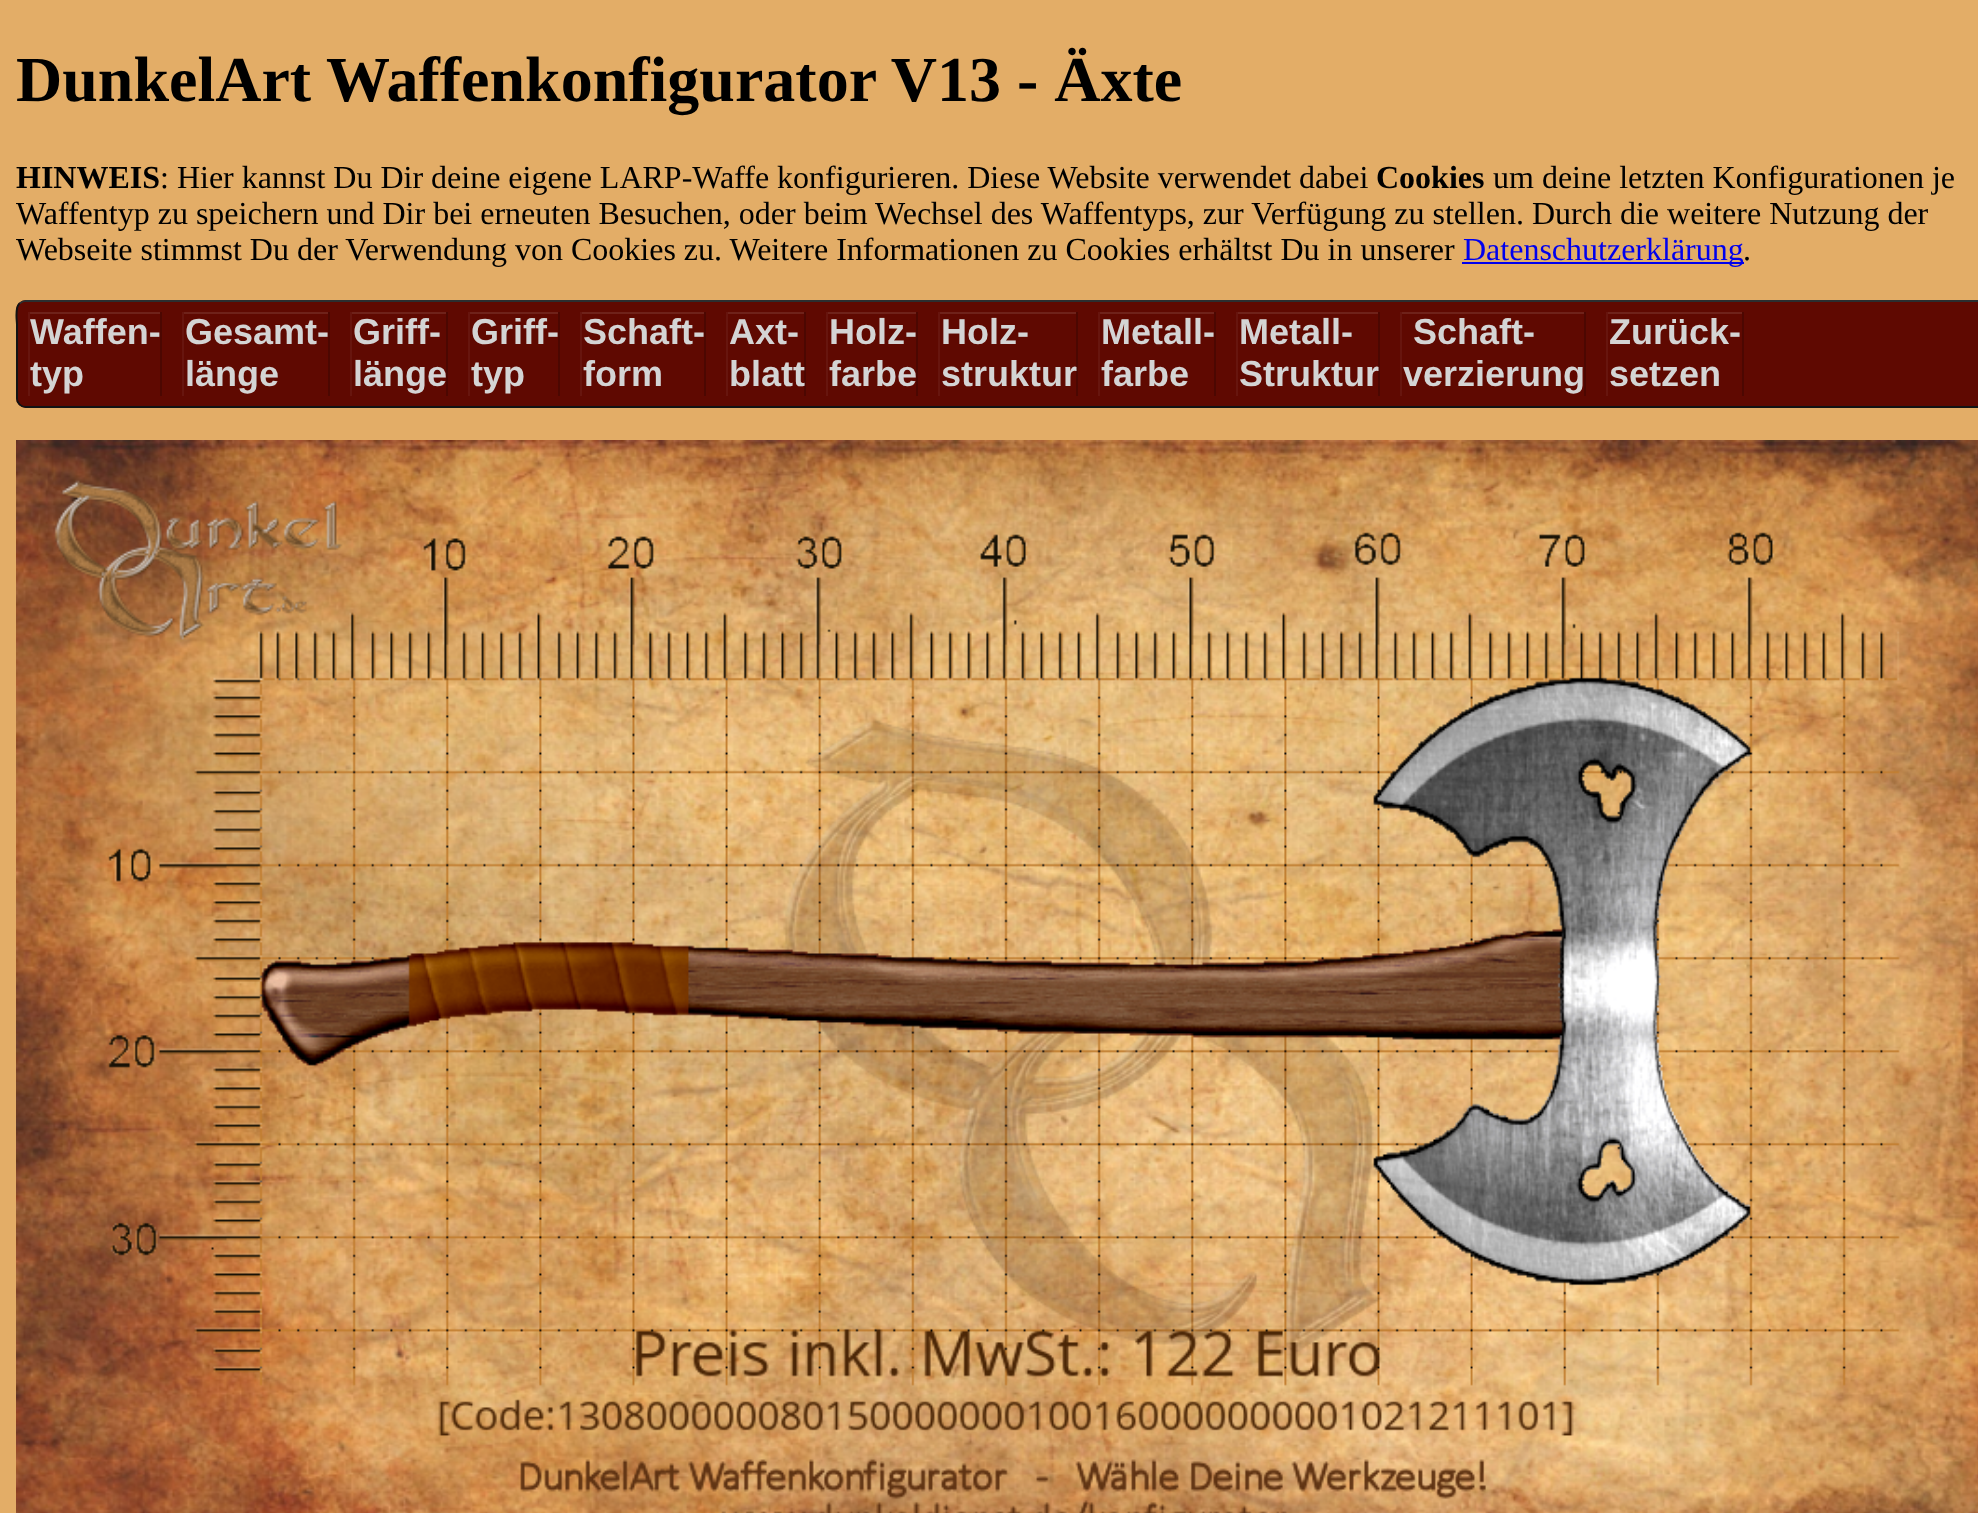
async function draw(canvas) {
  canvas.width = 1978;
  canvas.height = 1513;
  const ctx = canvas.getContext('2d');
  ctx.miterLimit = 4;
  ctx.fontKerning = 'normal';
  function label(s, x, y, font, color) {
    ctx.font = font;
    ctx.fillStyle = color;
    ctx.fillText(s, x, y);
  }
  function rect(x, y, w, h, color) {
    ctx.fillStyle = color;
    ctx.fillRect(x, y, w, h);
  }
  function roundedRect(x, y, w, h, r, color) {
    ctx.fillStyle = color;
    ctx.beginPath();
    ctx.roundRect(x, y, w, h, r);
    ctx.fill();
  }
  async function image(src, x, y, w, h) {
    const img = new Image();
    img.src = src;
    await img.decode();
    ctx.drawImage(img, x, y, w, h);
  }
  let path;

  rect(0, 0, 1978, 1513, '#e3ad67');
  label('DunkelArt Waffenkonfigurator V13 - Äxte', 16, 101, 'bold 64px Liberation Serif', '#000');
  label('HINWEIS', 16, 188, 'bold 32px Liberation Serif', '#000');
  label(': Hier kannst Du Dir deine eigene LARP-Waffe konfigurieren. Diese Website verwendet dabei', 160, 188, '32px Liberation Serif', '#000');
  label('Cookies', 1376, 188, 'bold 32px Liberation Serif', '#000');
  label('um deine letzten Konfigurationen je', 1493, 188, '32px Liberation Serif', '#000');
  label('Waffentyp zu speichern und Dir bei erneuten Besuchen, oder beim Wechsel des Waffentyps, zur Verfügung zu stellen. Durch die weitere Nutzung der', 16, 224, '32px Liberation Serif', '#000');
  label('Webseite stimmst Du der Verwendung von Cookies zu. Weitere Informationen zu Cookies erhältst Du in unserer', 16, 260, '32px Liberation Serif', '#000');
  rect(1462, 262, 282, 2, '#00e');
  label('Datenschutzerklärung', 1463, 260, '32px Liberation Serif', '#00e');
  label('.', 1743, 260, '32px Liberation Serif', '#000');
  roundedRect(16, 300, 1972, 108, 10, '#5f0901');
  path = new Path2D('M19.5 303.5C21.5 302 23.5 301 26 301H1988C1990.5 301 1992.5 302 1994.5 303.5');
  ctx.strokeStyle = '#2b2e30';
  ctx.lineWidth = 2;
  ctx.stroke(path);
  path = new Path2D('M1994.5 303.5C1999.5 308.5 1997 320 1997 324.5V398C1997 403 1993 407 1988 407H26C21 407 17 403 17 398V324.5C17 320 14.5 308.5 19.5 303.5');
  ctx.strokeStyle = '#121314';
  ctx.stroke(path);
  ctx.beginPath();
  ctx.roundRect(18, 302, 154, 104, [8, 0, 0, 8]);
  ctx.fill();
  rect(30, 312, 130, 2, '#6f221a');
  rect(160, 312, 2, 84, '#4c0701');
  rect(28, 312, 2, 84, '#67150e');
  label('Waffen-', 30, 344, 'bold 36px Liberation Sans', '#d4d4d4');
  label('typ', 30, 386, 'bold 36px Liberation Sans', '#d4d4d4');
  rect(184, 312, 144, 2, '#6f221a');
  rect(328, 312, 2, 84, '#4c0701');
  rect(182, 312, 2, 84, '#67150e');
  label('Gesamt-', 185, 344, 'bold 36px Liberation Sans', '#d4d4d4');
  label('länge', 185, 386, 'bold 36px Liberation Sans', '#d4d4d4');
  rect(352, 312, 94, 2, '#6f221a');
  rect(446, 312, 2, 84, '#4c0701');
  rect(350, 312, 2, 84, '#67150e');
  label('Griff-', 353, 344, 'bold 36px Liberation Sans', '#d4d4d4');
  label('länge', 353, 386, 'bold 36px Liberation Sans', '#d4d4d4');
  rect(470, 312, 88, 2, '#6f221a');
  rect(558, 312, 2, 84, '#4c0701');
  rect(468, 312, 2, 84, '#67150e');
  label('Griff-', 471, 344, 'bold 36px Liberation Sans', '#d4d4d4');
  label('typ', 471, 386, 'bold 36px Liberation Sans', '#d4d4d4');
  rect(582, 312, 122, 2, '#6f221a');
  rect(704, 312, 2, 84, '#4c0701');
  rect(580, 312, 2, 84, '#67150e');
  label('Schaft-', 583, 344, 'bold 36px Liberation Sans', '#d4d4d4');
  label('form', 583, 386, 'bold 36px Liberation Sans', '#d4d4d4');
  rect(728, 312, 76, 2, '#6f221a');
  rect(804, 312, 2, 84, '#4c0701');
  rect(726, 312, 2, 84, '#67150e');
  label('Axt-', 729, 344, 'bold 36px Liberation Sans', '#d4d4d4');
  label('blatt', 729, 386, 'bold 36px Liberation Sans', '#d4d4d4');
  rect(828, 312, 88, 2, '#6f221a');
  rect(916, 312, 2, 84, '#4c0701');
  rect(826, 312, 2, 84, '#67150e');
  label('Holz-', 829, 344, 'bold 36px Liberation Sans', '#d4d4d4');
  label('farbe', 829, 386, 'bold 36px Liberation Sans', '#d4d4d4');
  rect(940, 312, 136, 2, '#6f221a');
  rect(1076, 312, 2, 84, '#4c0701');
  rect(938, 312, 2, 84, '#67150e');
  label('Holz-', 941, 344, 'bold 36px Liberation Sans', '#d4d4d4');
  label('struktur', 941, 386, 'bold 36px Liberation Sans', '#d4d4d4');
  rect(1100, 312, 114, 2, '#6f221a');
  rect(1214, 312, 2, 84, '#4c0701');
  rect(1098, 312, 2, 84, '#67150e');
  label('Metall-', 1101, 344, 'bold 36px Liberation Sans', '#d4d4d4');
  label('farbe', 1101, 386, 'bold 36px Liberation Sans', '#d4d4d4');
  rect(1238, 312, 140, 2, '#6f221a');
  rect(1378, 312, 2, 84, '#4c0701');
  rect(1236, 312, 2, 84, '#67150e');
  label('Metall-', 1239, 344, 'bold 36px Liberation Sans', '#d4d4d4');
  label('Struktur', 1239, 386, 'bold 36px Liberation Sans', '#d4d4d4');
  rect(1402, 312, 182, 2, '#6f221a');
  rect(1584, 312, 2, 84, '#4c0701');
  rect(1400, 312, 2, 84, '#67150e');
  label('Schaft-', 1413, 344, 'bold 36px Liberation Sans', '#d4d4d4');
  label('verzierung', 1403, 386, 'bold 36px Liberation Sans', '#d4d4d4');
  rect(1608, 312, 134, 2, '#6f221a');
  rect(1742, 312, 2, 84, '#4c0701');
  rect(1606, 312, 2, 84, '#67150e');
  label('Zurück-', 1609, 344, 'bold 36px Liberation Sans', '#d4d4d4');
  label('setzen', 1609, 386, 'bold 36px Liberation Sans', '#d4d4d4');
  await image('assets/img1.png', 16, 440, 1962, 1073);
}

draw(document.querySelector('canvas'));
